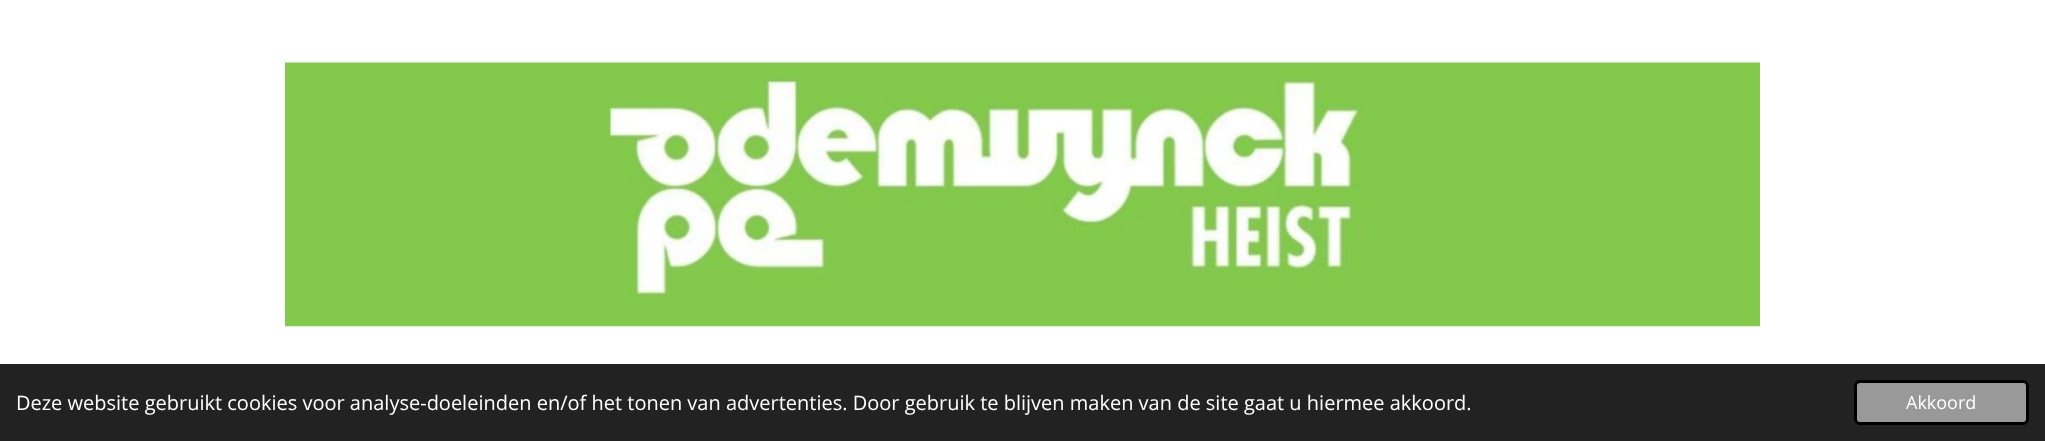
async function draw(canvas) {
  canvas.width = 2045;
  canvas.height = 441;
  const ctx = canvas.getContext('2d');
  ctx.miterLimit = 4;
  ctx.fontKerning = 'normal';
  function label(s, x, y, font, color) {
    ctx.font = font;
    ctx.fillStyle = color;
    ctx.fillText(s, x, y);
  }
  function rect(x, y, w, h, color) {
    ctx.fillStyle = color;
    ctx.fillRect(x, y, w, h);
  }
  async function image(src, x, y, w, h) {
    const img = new Image();
    img.src = src;
    await img.decode();
    ctx.drawImage(img, x, y, w, h);
  }

  rect(0, 0, 2045, 441, '#fff');
  await image('assets/img1.png', 285, 62, 1475, 265);
  rect(0, 364, 2045, 77, '#222');
  label('Deze website gebruikt cookies voor analyse-doeleinden en/of het tonen van advertenties. Door gebruik te blijven maken van de site gaat u hiermee akkoord.', 16, 410, '20px Open Sans', '#fff');
  ctx.fillStyle = '#999';
  ctx.beginPath();
  ctx.roundRect(1855.5, 381.5, 172, 42, 4.5);
  ctx.fill();
  ctx.strokeStyle = '#000';
  ctx.lineWidth = 3;
  ctx.stroke();
  label('Akkoord', 1906, 409, '18px Open Sans', '#fff');
}

draw(document.querySelector('canvas'));
